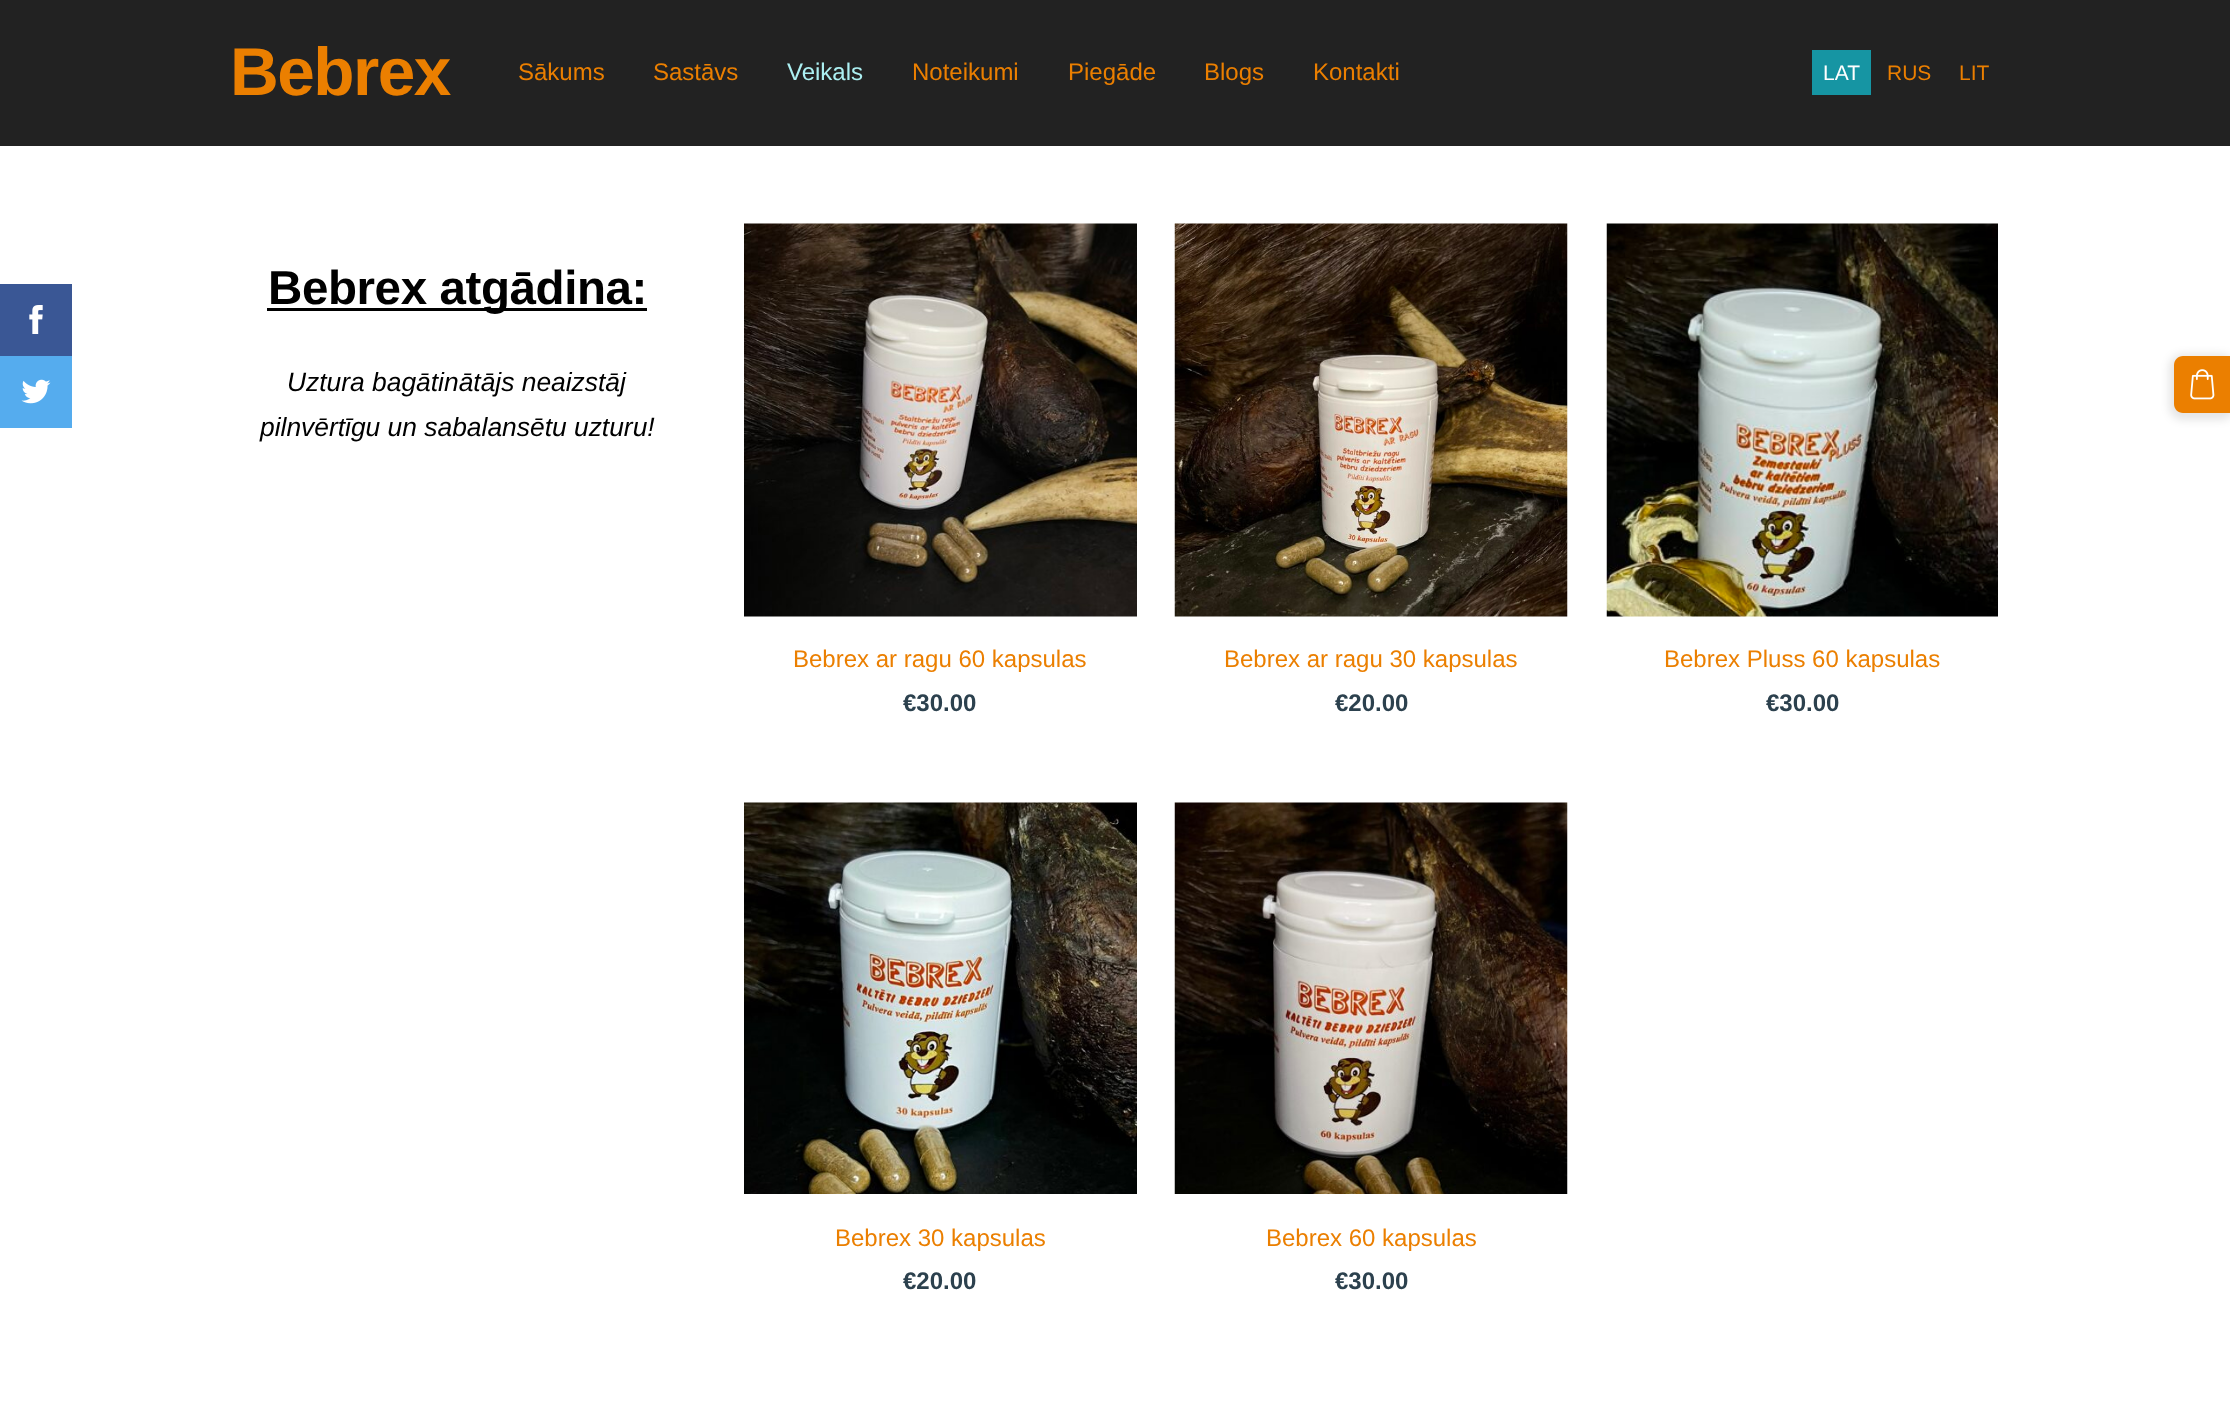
async function draw(canvas) {
  canvas.width = 2230;
  canvas.height = 1420;
  const ctx = canvas.getContext('2d');
  ctx.miterLimit = 4;
  ctx.fontKerning = 'normal';
  function label(s, x, y, font, color) {
    ctx.font = font;
    ctx.fillStyle = color;
    ctx.fillText(s, x, y);
  }
  function rect(x, y, w, h, color) {
    ctx.fillStyle = color;
    ctx.fillRect(x, y, w, h);
  }
  async function image(src, x, y, w, h) {
    const img = new Image();
    img.src = src;
    await img.decode();
    ctx.drawImage(img, x, y, w, h);
  }
  let path;

  rect(0, 0, 2230, 1420, '#fff');
  rect(0, 284, 72, 72, '#3a5795');
  await image('assets/img1.png', 29, 305, 14, 29);
  rect(0, 356, 72, 72, '#55acee');
  await image('assets/img2.png', 21, 379, 30, 25);
  rect(0, 0, 2230, 146, '#222');
  ctx.letterSpacing = '-1.5px';
  label('Bebrex', 230, 95, 'bold 67.5px Liberation Sans', '#eb7f00');
  ctx.letterSpacing = '0px';
  label('Sākums', 518, 80, '24px Liberation Sans', '#eb7f00');
  label('Sastāvs', 653, 80, '24px Liberation Sans', '#eb7f00');
  label('Veikals', 787, 80, '24px Liberation Sans', '#acf0f2');
  label('Noteikumi', 912, 80, '24px Liberation Sans', '#eb7f00');
  label('Piegāde', 1068, 80, '24px Liberation Sans', '#eb7f00');
  label('Blogs', 1204, 80, '24px Liberation Sans', '#eb7f00');
  label('Kontakti', 1313, 80, '24px Liberation Sans', '#eb7f00');
  rect(1812, 50, 59, 45, '#1695a3');
  label('LAT', 1823, 80, '21px Liberation Sans', '#fff');
  label('RUS', 1887, 80, '21px Liberation Sans', '#eb7f00');
  label('LIT', 1959, 80, '21px Liberation Sans', '#eb7f00');
  rect(267, 308, 380, 3, '#000');
  ctx.letterSpacing = '-0.4px';
  label('Bebrex atgādina:', 268, 304, 'bold 47.5px Liberation Sans', '#000');
  ctx.letterSpacing = '0px';
  label('Uztura bagātinātājs neaizstāj', 287, 391, 'italic 26.4px Liberation Sans', '#000');
  label('pilnvērtīgu un sabalansētu uzturu!', 260, 436, 'italic 26.4px Liberation Sans', '#000');
  await image('assets/img3.png', 744, 223, 393, 394);
  label('Bebrex ar ragu 60 kapsulas', 793, 667, '24px Liberation Sans', '#eb7f00');
  label('€30.00', 903, 711, 'bold 24px Liberation Sans', '#2c414e');
  await image('assets/img4.png', 1174, 223, 394, 394);
  label('Bebrex ar ragu 30 kapsulas', 1224, 667, '24px Liberation Sans', '#eb7f00');
  label('€20.00', 1335, 711, 'bold 24px Liberation Sans', '#2c414e');
  await image('assets/img5.png', 1606, 223, 392, 394);
  label('Bebrex Pluss 60 kapsulas', 1664, 667, '24px Liberation Sans', '#eb7f00');
  label('€30.00', 1766, 711, 'bold 24px Liberation Sans', '#2c414e');
  await image('assets/img6.png', 744, 802, 393, 392);
  label('Bebrex 30 kapsulas', 835, 1246, '24px Liberation Sans', '#eb7f00');
  label('€20.00', 903, 1289, 'bold 24px Liberation Sans', '#2c414e');
  await image('assets/img7.png', 1174, 802, 394, 392);
  label('Bebrex 60 kapsulas', 1266, 1246, '24px Liberation Sans', '#eb7f00');
  label('€30.00', 1335, 1289, 'bold 24px Liberation Sans', '#2c414e');
  ctx.fillStyle = '#0000001a';
  ctx.filter = 'blur(4px)';
  ctx.beginPath();
  ctx.roundRect(2169, 354, 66, 66, 14);
  ctx.fill();
  ctx.filter = 'none';
  ctx.fillStyle = '#eb7f00';
  path = new Path2D('M2183 356H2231V413H2183C2178 413 2174 409 2174 404V365C2174 360 2178 356 2183 356Z');
  ctx.fill(path);
  await image('assets/img8.png', 2190, 369, 25, 31);
}

draw(document.querySelector('canvas'));
